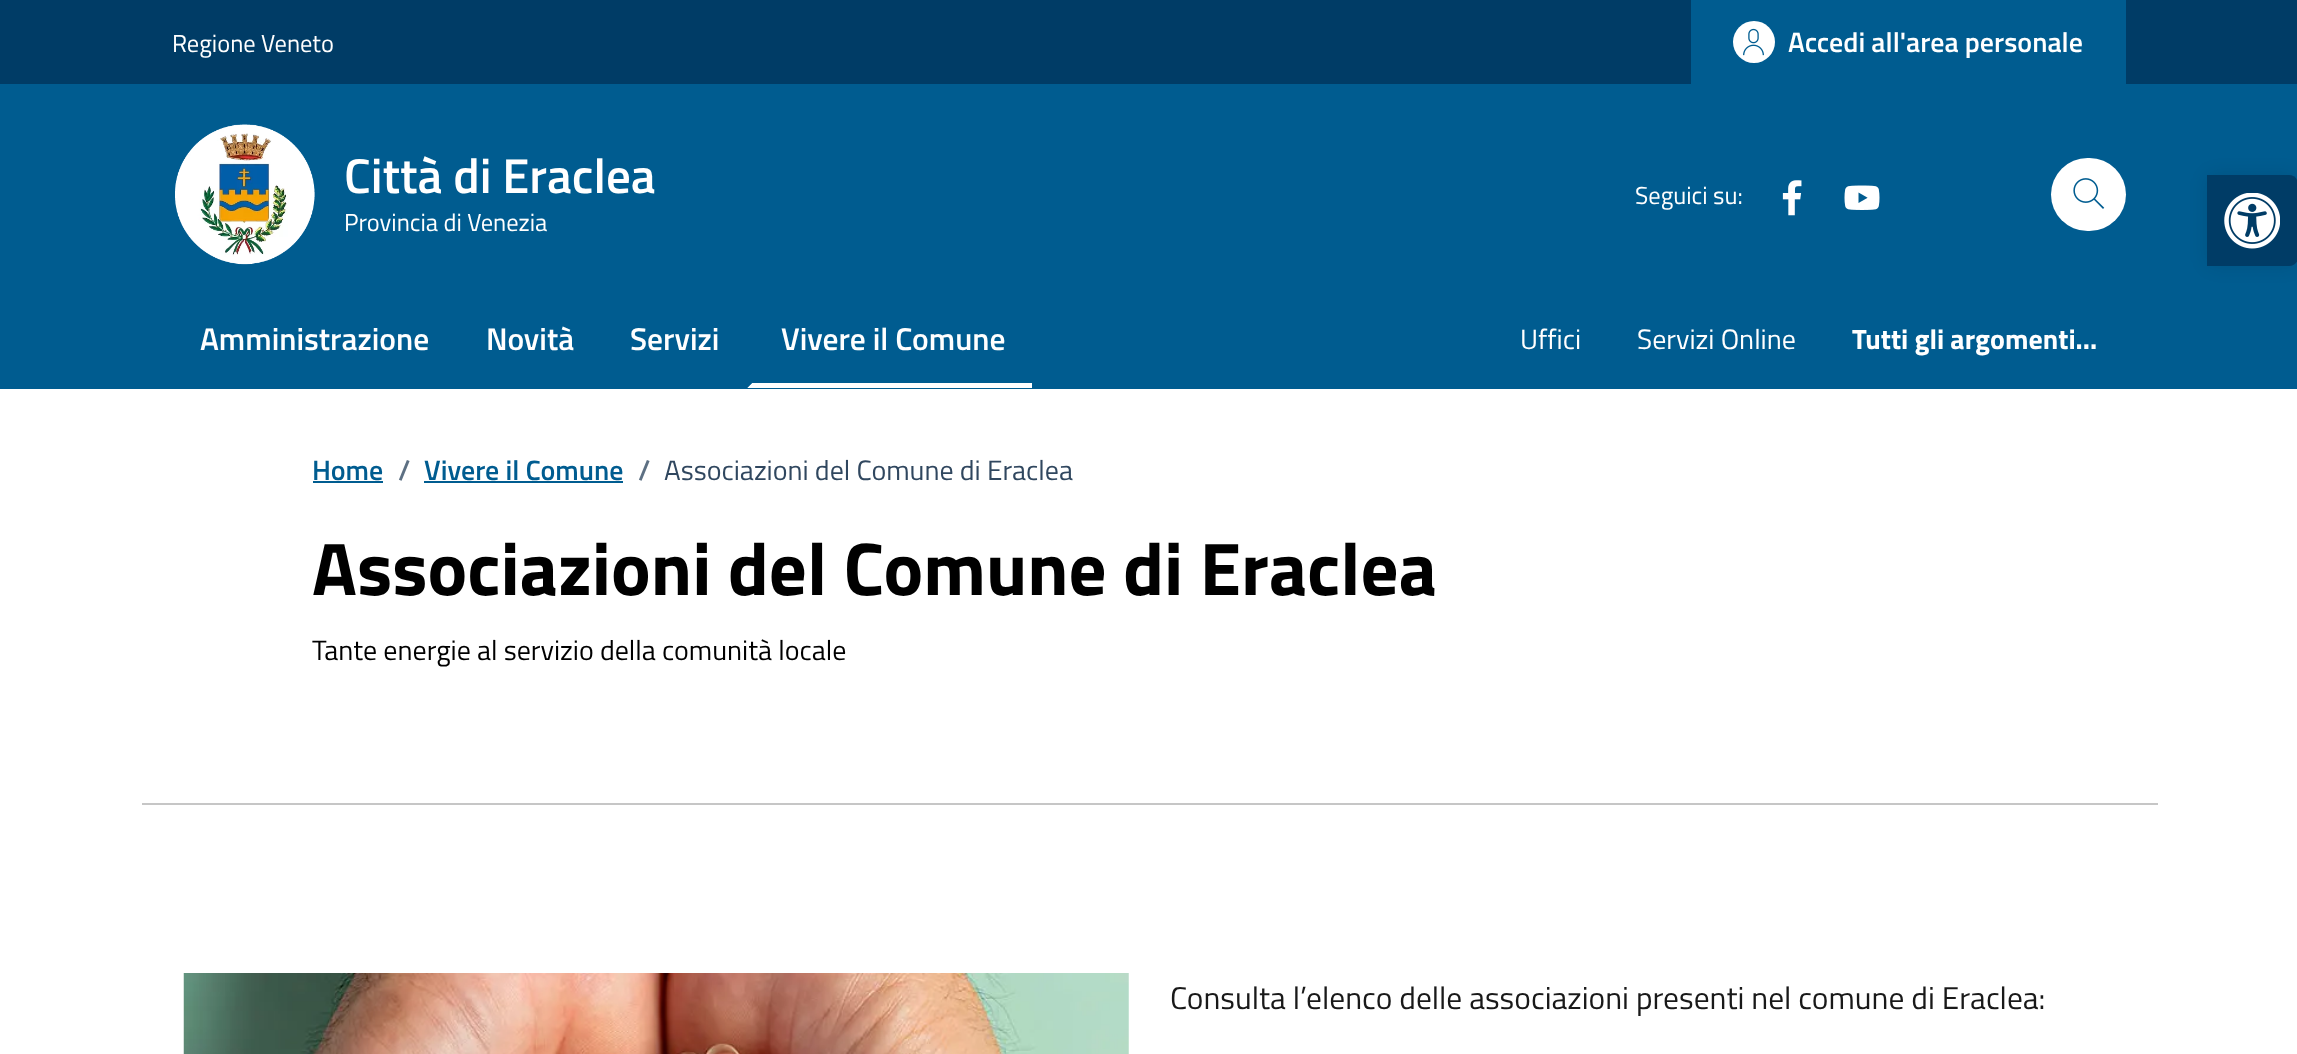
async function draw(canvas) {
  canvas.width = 2297;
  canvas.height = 1054;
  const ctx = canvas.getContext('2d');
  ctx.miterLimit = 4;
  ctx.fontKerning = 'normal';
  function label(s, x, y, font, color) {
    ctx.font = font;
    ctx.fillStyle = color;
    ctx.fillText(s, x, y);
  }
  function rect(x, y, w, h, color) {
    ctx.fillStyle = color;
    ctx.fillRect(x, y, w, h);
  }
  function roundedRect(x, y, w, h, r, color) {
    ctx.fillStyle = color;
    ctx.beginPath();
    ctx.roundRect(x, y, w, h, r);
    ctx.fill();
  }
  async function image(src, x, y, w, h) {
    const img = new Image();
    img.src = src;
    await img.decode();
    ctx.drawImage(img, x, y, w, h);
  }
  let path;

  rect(0, 0, 2297, 1054, '#fff');
  rect(0, 0, 2297, 84, '#003c66');
  label('Regione Veneto', 172, 52, '24.5px Titillium Web', '#fff');
  rect(1691, 0, 435, 84, '#005c90');
  ctx.fillStyle = '#fff';
  ctx.beginPath();
  ctx.arc(1754, 42, 21, 0, 2 * Math.PI);
  ctx.fill();
  await image('assets/img1.png', 1743, 28, 21, 28);
  label('Accedi all\'area personale', 1788, 52, '600 28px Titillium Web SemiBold', '#fff');
  rect(0, 84, 2297, 305, '#005c90');
  await image('assets/img2.png', 175, 124, 140, 141);
  label('Città di Eraclea', 344, 193, '600 49px Titillium Web SemiBold', '#fff');
  label('Provincia di Venezia', 344, 231, '24.5px Titillium Web', '#fff');
  label('Seguici su:', 1635, 204, '24.5px Titillium Web', '#fff');
  await image('assets/img3.png', 1782, 180, 20, 36);
  await image('assets/img4.png', 1844, 185, 36, 25);
  roundedRect(2051, 158, 75, 73, 36.5, '#fff');
  await image('assets/img5.png', 2073, 178, 32, 31);
  label('Amministrazione', 200, 350, '600 31.5px Titillium Web SemiBold', '#fff');
  label('Novità', 486, 350, '600 31.5px Titillium Web SemiBold', '#fff');
  label('Servizi', 630, 350, '600 31.5px Titillium Web SemiBold', '#fff');
  path = new Path2D('M1032 388H747L752 383H1032Z');
  ctx.fill(path);
  ctx.fillStyle = '#005c90';
  path = new Path2D('M747 388V294H752V383Z');
  ctx.fill(path);
  label('Vivere il Comune', 781, 350, '600 31.5px Titillium Web SemiBold', '#fff');
  label('Uffici', 1520, 349, '28px Titillium Web', '#fff');
  label('Servizi Online', 1637, 349, '28px Titillium Web', '#fff');
  label('Tutti gli argomenti...', 1852, 349, 'bold 28px Titillium Web', '#fff');
  ctx.fillStyle = '#0000001a';
  ctx.filter = 'blur(9px)';
  ctx.beginPath();
  ctx.roundRect(2207, 175, 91, 91, 9);
  ctx.fill();
  ctx.filter = 'none';
  ctx.fillStyle = '#003c66';
  path = new Path2D('M2207 175H2289C2294 175 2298 179 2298 184V257C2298 262 2294 266 2289 266H2207Z');
  ctx.fill(path);
  await image('assets/img6.png', 2224, 193, 56, 56);
  label('Home', 312, 480, '600 28px Titillium Web SemiBold', '#005c90');
  rect(313, 481, 70, 2, '#005c90');
  label('/', 398, 480, '600 28px Titillium Web SemiBold', '#5d7083');
  label('Vivere il Comune', 424, 480, '600 28px Titillium Web SemiBold', '#005c90');
  rect(424, 481, 199, 2, '#005c90');
  label('/', 638, 480, '600 28px Titillium Web SemiBold', '#5d7083');
  label('Associazioni del Comune di Eraclea', 664, 480, '28px Titillium Web', '#30475f');
  label('Associazioni del Comune di Eraclea', 312, 595, 'bold 74.7px Titillium Web', '#000');
  label('Tante energie al servizio della comunità locale', 312, 660, '28px Titillium Web', '#000');
  rect(142, 803, 2016, 2, '#c6c6c6');
  await image('assets/img7.png', 183, 973, 946, 81);
  label('Consulta l’elenco delle associazioni presenti nel comune di Eraclea:', 1170, 1009, '31.5px Titillium Web', '#191919');
}

draw(document.querySelector('canvas'));
